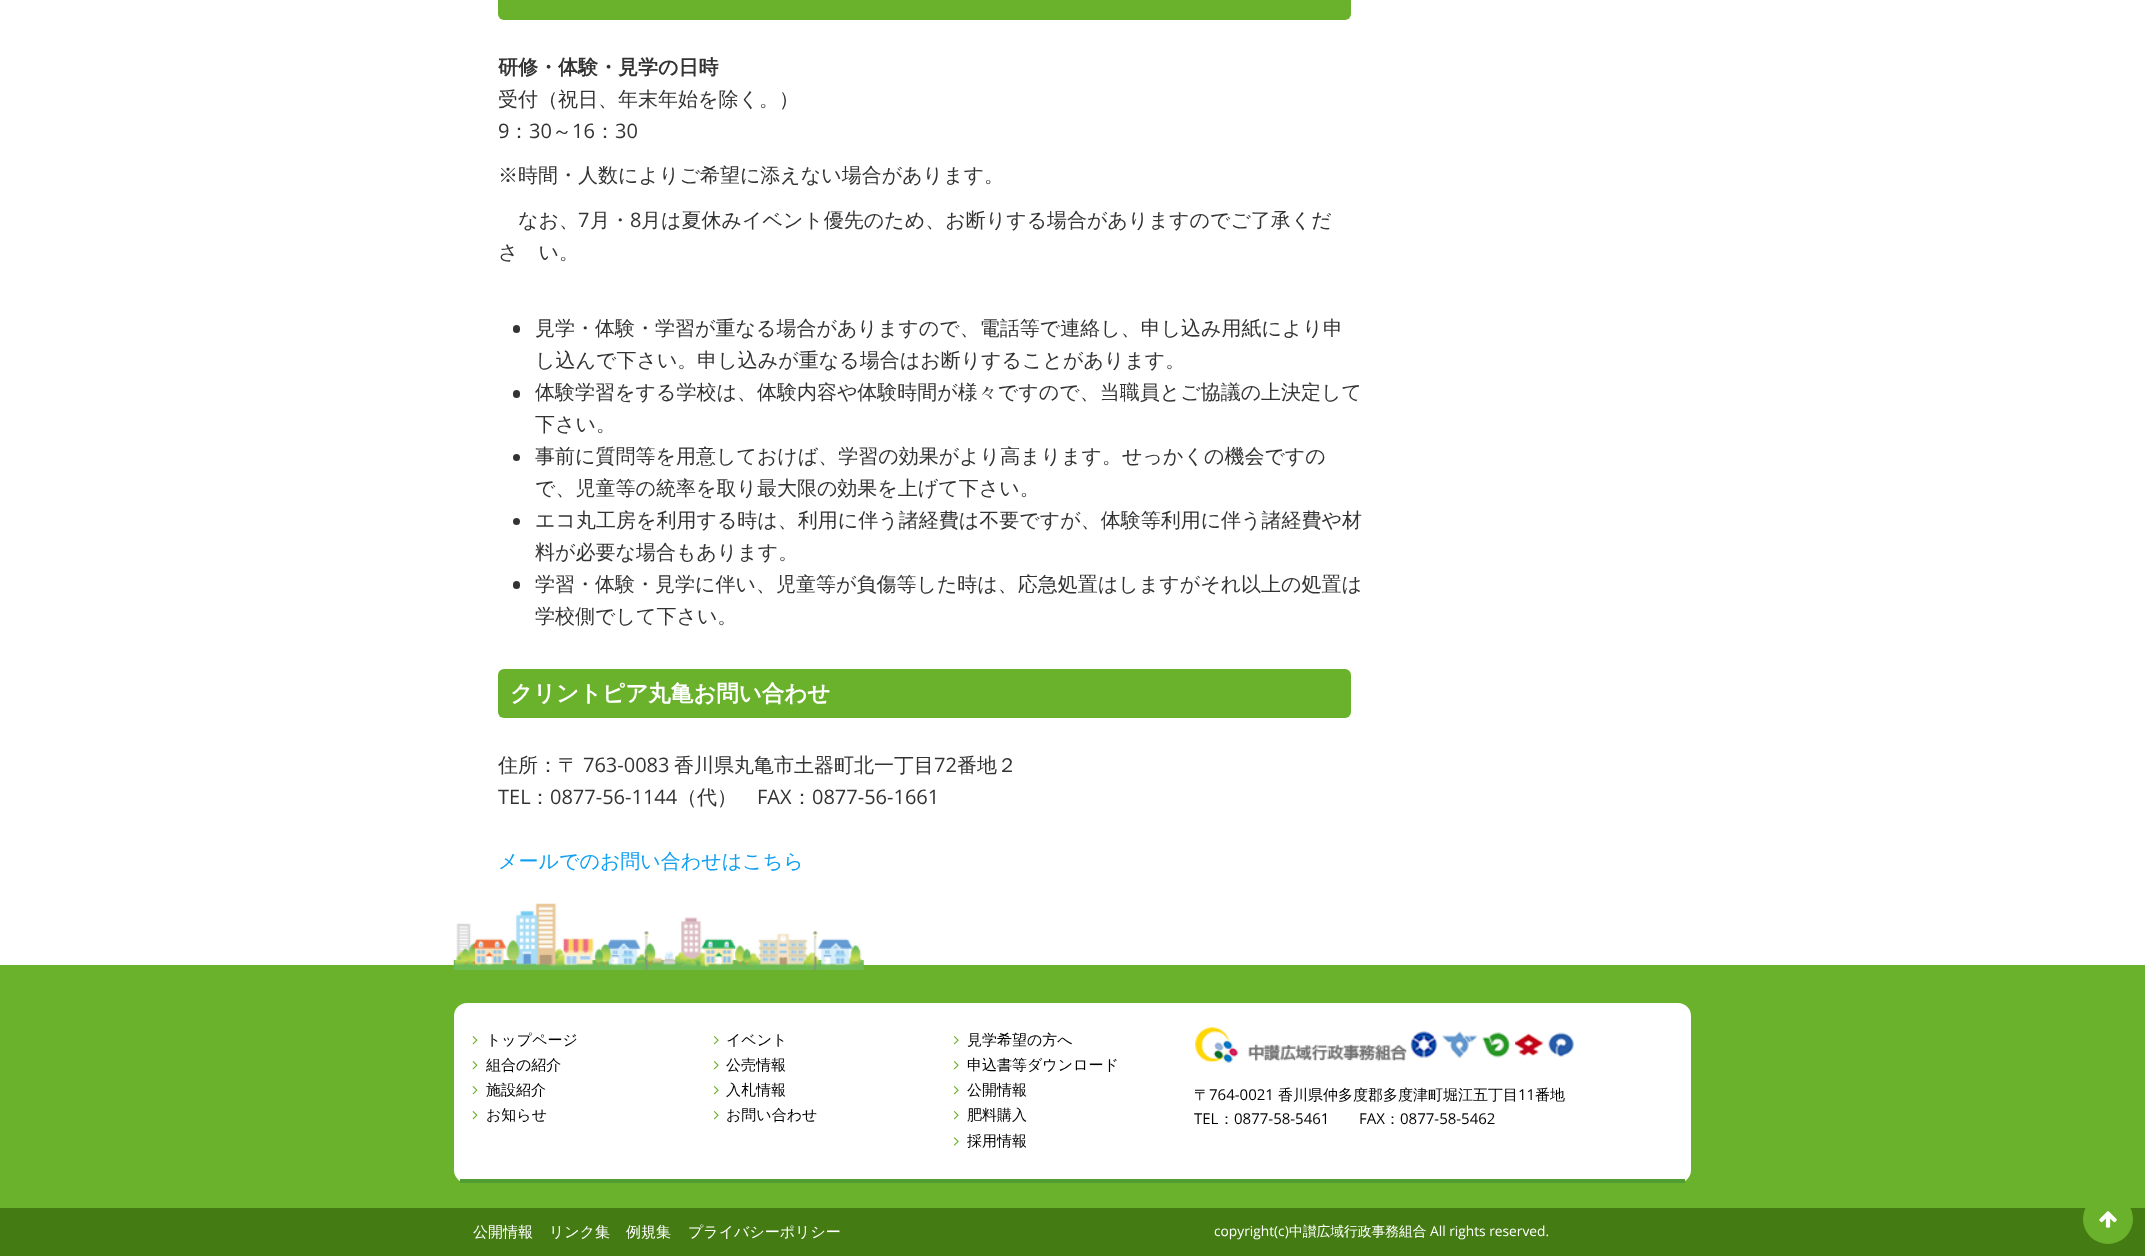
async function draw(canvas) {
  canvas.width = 2145;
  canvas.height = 1256;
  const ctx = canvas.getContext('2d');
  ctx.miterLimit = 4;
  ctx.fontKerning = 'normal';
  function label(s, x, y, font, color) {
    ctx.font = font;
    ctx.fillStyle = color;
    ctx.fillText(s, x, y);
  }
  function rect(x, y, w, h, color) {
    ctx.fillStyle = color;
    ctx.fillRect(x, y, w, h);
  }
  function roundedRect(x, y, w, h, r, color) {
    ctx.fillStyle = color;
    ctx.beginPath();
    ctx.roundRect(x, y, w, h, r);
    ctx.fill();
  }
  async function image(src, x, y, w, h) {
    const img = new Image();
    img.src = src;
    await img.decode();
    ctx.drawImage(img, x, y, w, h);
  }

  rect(0, 0, 2145, 1256, '#fff');
  roundedRect(498, -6, 853, 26, 6, '#6bb22c');
  label('研修・体験・見学の日時', 498, 74, 'bold 20px WenQuanYi Zen Hei', '#333');
  label('受付（祝日、年末年始を除く。）', 498, 106, '500 20px WenQuanYi Zen Hei', '#333');
  label('9', 498, 138, '20px Open Sans', '#333');
  label('：', 509, 138, '500 20px WenQuanYi Zen Hei', '#333');
  label('30', 529, 138, '20px Open Sans', '#333');
  label('～', 552, 138, '500 20px WenQuanYi Zen Hei', '#333');
  label('16', 572, 138, '20px Open Sans', '#333');
  label('：', 595, 138, '500 20px WenQuanYi Zen Hei', '#333');
  label('30', 615, 138, '20px Open Sans', '#333');
  label('※時間・人数によりご希望に添えない場合があります。', 498, 182, '500 20px WenQuanYi Zen Hei', '#333');
  label('なお、', 518, 227, '500 20px WenQuanYi Zen Hei', '#333');
  label('7', 578, 227, '20px Open Sans', '#333');
  label('月・', 590, 227, '500 20px WenQuanYi Zen Hei', '#333');
  label('8', 630, 227, '20px Open Sans', '#333');
  label('月は夏休みイベント優先のため、お断りする場合がありますのでご了承くだ', 641, 227, '500 20px WenQuanYi Zen Hei', '#333');
  label('さ　い。', 498, 259, '500 20px WenQuanYi Zen Hei', '#333');
  roundedRect(513, 325, 7, 8, 3.5, '#333');
  label('見学・体験・学習が重なる場合がありますので、電話等で連絡し、申し込み用紙により申', 535, 335, '500 20px WenQuanYi Zen Hei', '#333');
  label('し込んで下さい。申し込みが重なる場合はお断りすることがあります。', 535, 367, '500 20px WenQuanYi Zen Hei', '#333');
  roundedRect(513, 390, 7, 8, 3.5, '#333');
  label('体験学習をする学校は、体験内容や体験時間が様々ですので、当職員とご協議の上決定して', 535, 399, '500 20px WenQuanYi Zen Hei', '#333');
  label('下さい。', 535, 431, '500 20px WenQuanYi Zen Hei', '#333');
  ctx.beginPath();
  ctx.arc(516.5, 457.5, 3.5, 0, 2 * Math.PI);
  ctx.fill();
  label('事前に質問等を用意しておけば、学習の効果がより高まります。せっかくの機会ですの', 535, 463, '500 20px WenQuanYi Zen Hei', '#333');
  label('で、児童等の統率を取り最大限の効果を上げて下さい。', 535, 495, '500 20px WenQuanYi Zen Hei', '#333');
  ctx.beginPath();
  ctx.arc(516.5, 521.5, 3.5, 0, 2 * Math.PI);
  ctx.fill();
  label('エコ丸工房を利用する時は、利用に伴う諸経費は不要ですが、体験等利用に伴う諸経費や材', 535, 527, '500 20px WenQuanYi Zen Hei', '#333');
  label('料が必要な場合もあります。', 535, 559, '500 20px WenQuanYi Zen Hei', '#333');
  roundedRect(513, 581, 7, 8, 3.5, '#333');
  label('学習・体験・見学に伴い、児童等が負傷等した時は、応急処置はしますがそれ以上の処置は', 535, 591, '500 20px WenQuanYi Zen Hei', '#333');
  label('学校側でして下さい。', 535, 623, '500 20px WenQuanYi Zen Hei', '#333');
  roundedRect(498, 669, 853, 49, 6, '#6bb22c');
  label('クリントピア丸亀お問い合わせ', 510, 701, 'bold 22.5px WenQuanYi Zen Hei', '#fff');
  label('住所：〒', 498, 772, '500 20px WenQuanYi Zen Hei', '#333');
  label('763-0083', 583, 772, '20px Open Sans', '#333');
  label('香川県丸亀市土器町北一丁目', 674, 772, '500 20px WenQuanYi Zen Hei', '#333');
  label('72', 934, 772, '20px Open Sans', '#333');
  label('番地２', 957, 772, '500 20px WenQuanYi Zen Hei', '#333');
  label('TEL', 498, 804, '20px Open Sans', '#333');
  label('：', 530, 804, '500 20px WenQuanYi Zen Hei', '#333');
  label('0877-56-1144', 550, 804, '20px Open Sans', '#333');
  label('（代）', 677, 804, '500 20px WenQuanYi Zen Hei', '#333');
  label('FAX', 757, 804, '20px Open Sans', '#333');
  label('：', 792, 804, '500 20px WenQuanYi Zen Hei', '#333');
  label('0877-56-1661', 812, 804, '20px Open Sans', '#333');
  label('メールでのお問い合わせはこちら', 498, 868, '500 20px WenQuanYi Zen Hei', '#0f9ff1');
  rect(0, 965, 2145, 243, '#6bb22c');
  roundedRect(454, 1003, 1237, 180, 13, '#fff');
  rect(460, 1179, 1225, 4, '#509d34');
  await image('assets/img1.png', 453, 903, 411, 67);
  await image('assets/img2.png', 472, 1036, 6, 9);
  label('トップページ', 486, 1045, '500 15px WenQuanYi Zen Hei', '#000');
  await image('assets/img2.png', 472, 1061, 6, 9);
  label('組合の紹介', 486, 1070, '500 15px WenQuanYi Zen Hei', '#000');
  await image('assets/img2.png', 472, 1086, 6, 9);
  label('施設紹介', 486, 1095, '500 15px WenQuanYi Zen Hei', '#000');
  await image('assets/img2.png', 472, 1111, 6, 9);
  label('お知らせ', 486, 1120, '500 15px WenQuanYi Zen Hei', '#000');
  await image('assets/img3.png', 713, 1036, 6, 9);
  label('イベント', 726, 1045, '500 15px WenQuanYi Zen Hei', '#000');
  await image('assets/img3.png', 713, 1061, 6, 9);
  label('公売情報', 726, 1070, '500 15px WenQuanYi Zen Hei', '#000');
  await image('assets/img3.png', 713, 1086, 6, 9);
  label('入札情報', 726, 1095, '500 15px WenQuanYi Zen Hei', '#000');
  await image('assets/img3.png', 713, 1111, 6, 9);
  label('お問い合わせ', 726, 1120, '500 15px WenQuanYi Zen Hei', '#000');
  await image('assets/img3.png', 953, 1036, 6, 9);
  label('見学希望の方へ', 967, 1045, '500 15px WenQuanYi Zen Hei', '#000');
  await image('assets/img3.png', 953, 1061, 6, 9);
  label('申込書等ダウンロード', 967, 1070, '500 15px WenQuanYi Zen Hei', '#000');
  await image('assets/img3.png', 953, 1086, 6, 9);
  label('公開情報', 967, 1095, '500 15px WenQuanYi Zen Hei', '#000');
  await image('assets/img3.png', 953, 1111, 6, 9);
  label('肥料購入', 967, 1120, '500 15px WenQuanYi Zen Hei', '#000');
  await image('assets/img4.png', 953, 1137, 6, 9);
  label('採用情報', 967, 1146, '500 15px WenQuanYi Zen Hei', '#000');
  await image('assets/img5.png', 1195, 1027, 212, 36);
  await image('assets/img6.png', 1410, 1031, 28, 27);
  await image('assets/img7.png', 1442, 1031, 36, 28);
  await image('assets/img8.png', 1482, 1032, 29, 26);
  await image('assets/img9.png', 1515, 1033, 29, 24);
  await image('assets/img10.png', 1547, 1032, 27, 25);
  label('〒', 1194, 1100, '500 15px WenQuanYi Zen Hei', '#000');
  label('764-0021', 1209, 1100, '15px Open Sans', '#000');
  label('香川県仲多度郡多度津町堀江五丁目', 1278, 1100, '500 15px WenQuanYi Zen Hei', '#000');
  label('11', 1518, 1100, '15px Open Sans', '#000');
  label('番地', 1535, 1100, '500 15px WenQuanYi Zen Hei', '#000');
  label('TEL', 1194, 1124, '15px Open Sans', '#000');
  label('：', 1219, 1124, '500 15px WenQuanYi Zen Hei', '#000');
  label('0877-58-5461', 1234, 1124, '15px Open Sans', '#000');
  label('FAX', 1359, 1124, '15px Open Sans', '#000');
  label('：', 1385, 1124, '500 15px WenQuanYi Zen Hei', '#000');
  label('0877-58-5462', 1400, 1124, '15px Open Sans', '#000');
  rect(0, 1208, 2145, 48, '#447b12');
  label('公開情報', 473, 1237, '500 15px WenQuanYi Zen Hei', '#fff');
  label('リンク集', 549, 1237, '500 15px WenQuanYi Zen Hei', '#fff');
  label('例規集', 626, 1237, '500 15px WenQuanYi Zen Hei', '#fff');
  label('プライバシーポリシー', 688, 1237, '500 15px WenQuanYi Zen Hei', '#fff');
  label('copyright(c)', 1214, 1236, '13.75px Open Sans', '#fff');
  label('中讃広域行政事務組合', 1289, 1236, '500 13.75px WenQuanYi Zen Hei', '#fff');
  label('All rights reserved.', 1430, 1236, '13.75px Open Sans', '#fff');
  ctx.fillStyle = '#6bb22c';
  ctx.beginPath();
  ctx.arc(2108, 1219, 25, 0, 2 * Math.PI);
  ctx.fill();
  await image('assets/img11.png', 2099, 1211, 18, 17);
}

draw(document.querySelector('canvas'));
